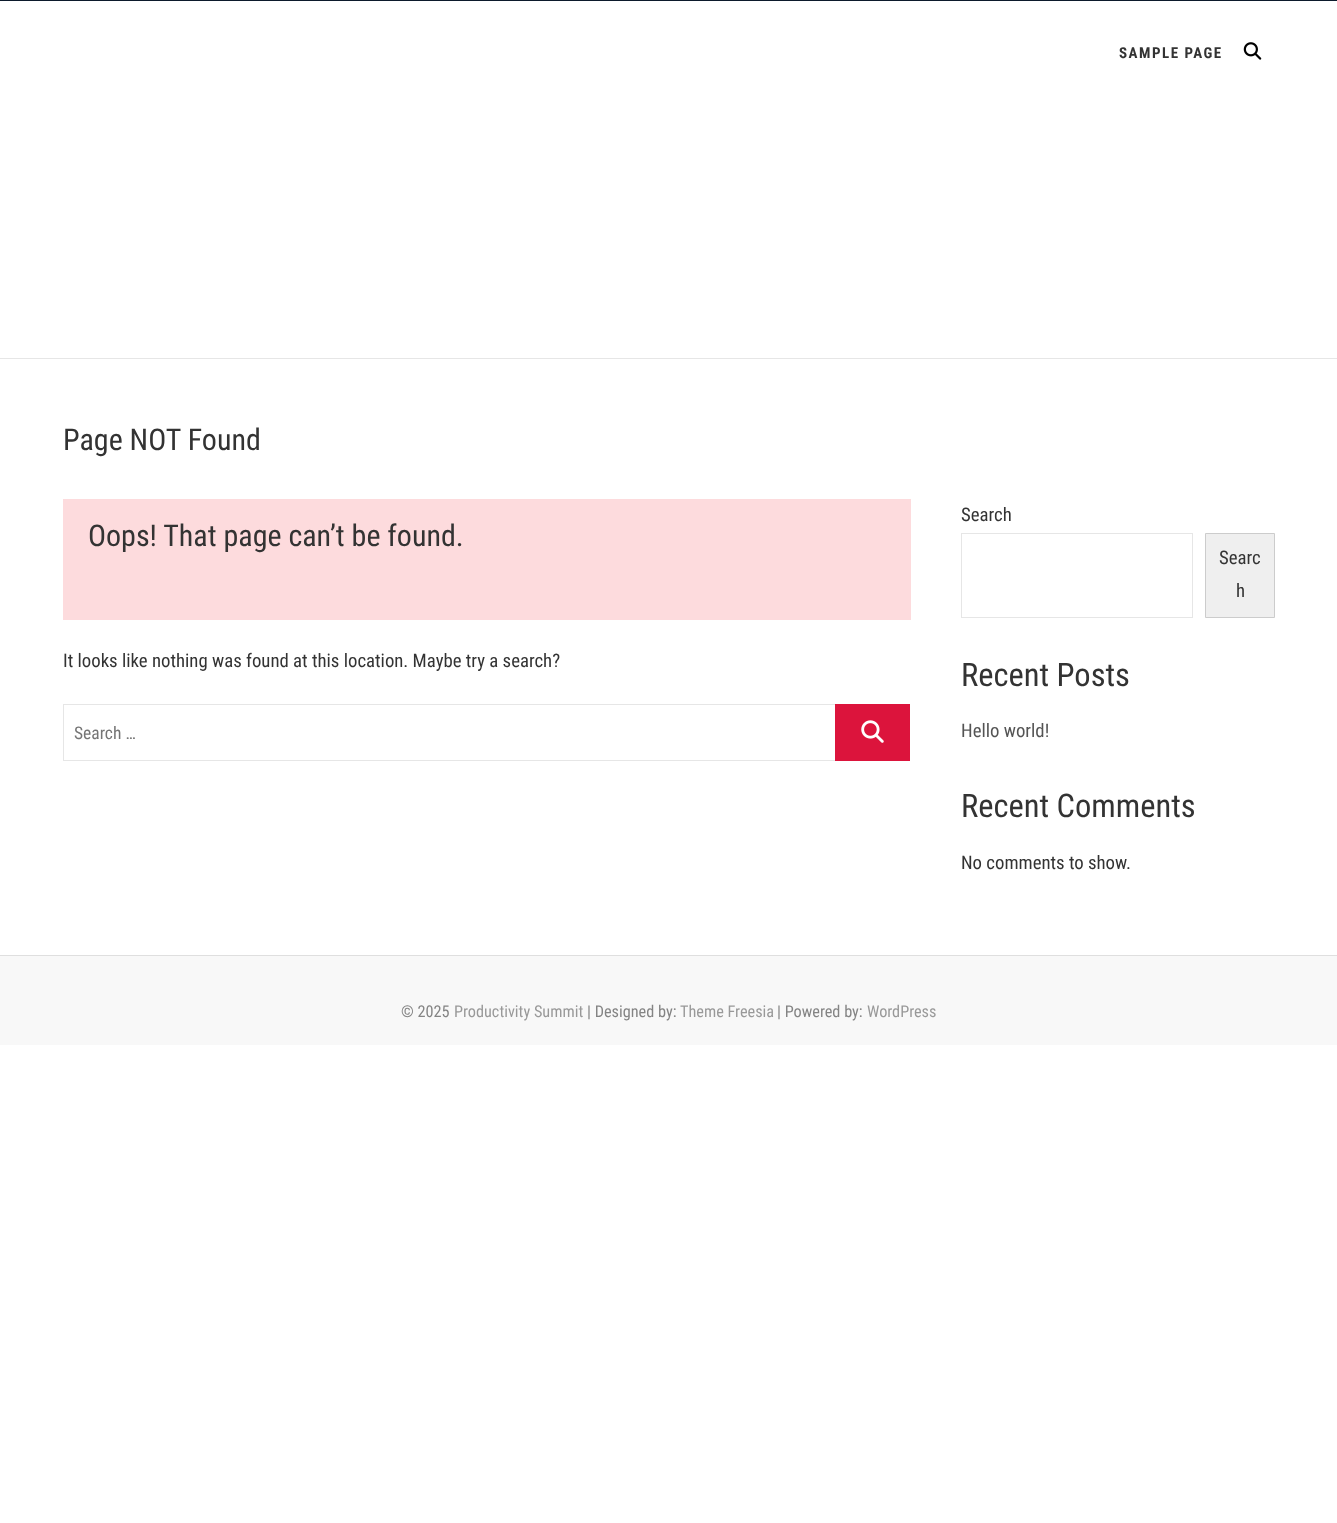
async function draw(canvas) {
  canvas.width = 1337;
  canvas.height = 1523;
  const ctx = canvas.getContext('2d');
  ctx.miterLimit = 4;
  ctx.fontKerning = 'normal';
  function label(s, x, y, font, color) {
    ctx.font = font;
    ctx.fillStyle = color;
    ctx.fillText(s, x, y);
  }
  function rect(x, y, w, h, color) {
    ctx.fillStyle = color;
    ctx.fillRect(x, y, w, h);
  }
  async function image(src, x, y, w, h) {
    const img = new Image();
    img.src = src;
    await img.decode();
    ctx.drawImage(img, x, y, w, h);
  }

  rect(0, 0, 1337, 1523, '#fff');
  rect(0, 0, 1337, 1, '#0c1a2c');
  rect(0, 358, 1337, 1, '#e6e6e6');
  ctx.letterSpacing = '1.5px';
  label('SAMPLE PAGE', 1119, 58, 'bold 15px Roboto Condensed', '#333');
  await image('assets/img1.png', 1243, 42, 19, 18);
  ctx.letterSpacing = '0px';
  label('Page NOT Found', 63, 450, '30px Roboto Condensed', '#333');
  rect(63, 499, 848, 121, '#fddbdd');
  label('Oops! That page can’t be found.', 88, 546, '30px Roboto Condensed', '#333');
  label('It looks like nothing was found at this location. Maybe try a search?', 63, 667, '18.75px Roboto Condensed', '#333');
  ctx.strokeStyle = '#e6e6e6';
  ctx.strokeRect(63.5, 704.5, 772, 56);
  label('Search …', 74, 739, '17.5px Roboto Condensed', '#757575');
  rect(835, 704, 75, 57, '#dc143c');
  await image('assets/img2.png', 861, 720, 23, 23);
  label('Search', 961, 521, '18.75px Roboto Condensed', '#333');
  ctx.strokeRect(961.5, 533.5, 231, 84);
  ctx.fillStyle = '#efefef';
  ctx.beginPath();
  ctx.rect(1205.5, 533.5, 69, 84);
  ctx.fill();
  ctx.strokeStyle = '#ccc';
  ctx.stroke();
  label('Searc', 1219, 564, '18.75px Roboto Condensed', '#333');
  label('h', 1236, 597, '18.75px Roboto Condensed', '#333');
  label('Recent Posts', 961, 686, '32.5px Roboto Condensed', '#333');
  label('Hello world!', 961, 737, '18.75px Roboto Condensed', '#545454');
  label('Recent Comments', 961, 817, '32.5px Roboto Condensed', '#333');
  label('No comments to show.', 961, 869, '18.75px Roboto Condensed', '#333');
  rect(0, 956, 1337, 89, '#f8f8f8');
  rect(0, 955, 1337, 1, '#dfdfdf');
  label('© 2025', 401, 1017, '16.25px Roboto Condensed', '#848484');
  label('Productivity Summit', 454, 1017, '16.25px Roboto Condensed', '#999');
  label('| Designed by:', 587, 1017, '16.25px Roboto Condensed', '#848484');
  label('Theme Freesia', 680, 1017, '16.25px Roboto Condensed', '#999');
  label('| Powered by:', 777, 1017, '16.25px Roboto Condensed', '#848484');
  label('WordPress', 867, 1017, '16.25px Roboto Condensed', '#999');
}

draw(document.querySelector('canvas'));
